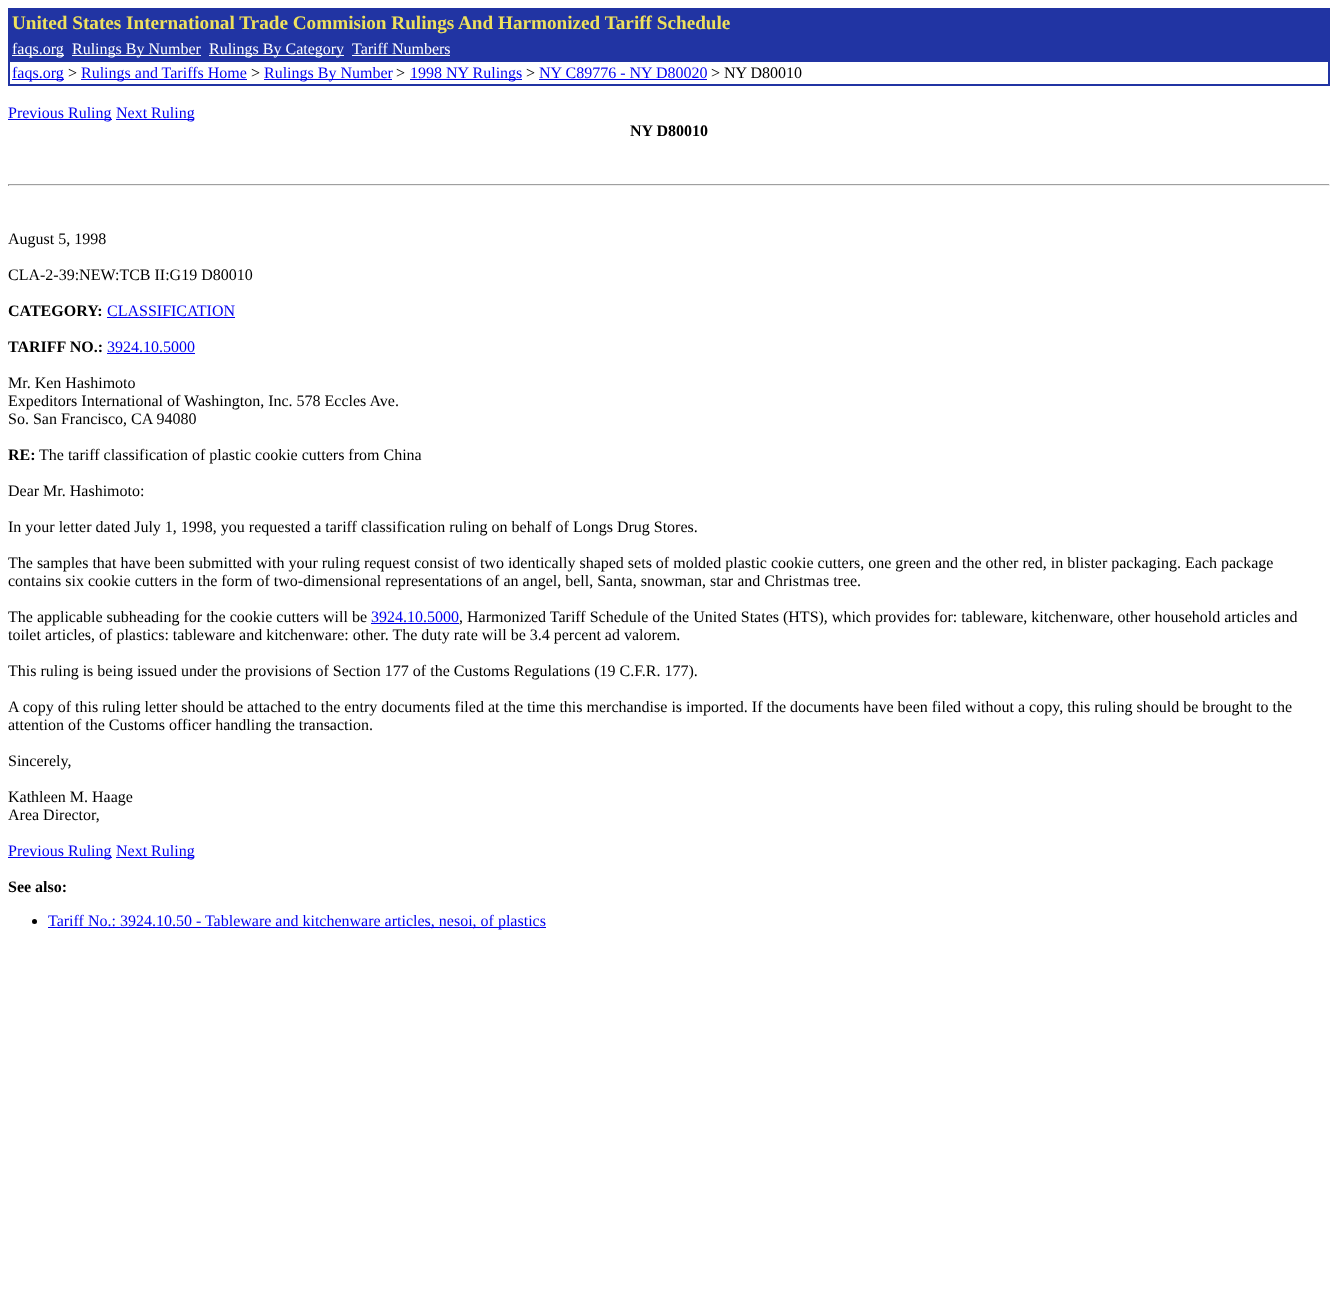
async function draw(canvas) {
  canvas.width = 1338;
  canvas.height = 1303;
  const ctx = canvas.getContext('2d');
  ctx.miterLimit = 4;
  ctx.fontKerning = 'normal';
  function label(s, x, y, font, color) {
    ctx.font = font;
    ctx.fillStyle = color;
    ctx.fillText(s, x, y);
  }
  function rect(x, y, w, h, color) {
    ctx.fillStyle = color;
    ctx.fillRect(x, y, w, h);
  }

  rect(0, 0, 1338, 1303, '#fff');
  rect(8, 8, 1322, 78, '#2134a3');
  label('United States International Trade Commision Rulings And Harmonized Tariff Schedule', 12, 29, 'bold 19.2px Liberation Serif', '#efe15d');
  rect(12, 55, 52, 1, '#fff');
  label('faqs.org', 12, 54, '16px Liberation Serif', '#fff');
  rect(72, 55, 129, 1, '#fff');
  label('Rulings By Number', 72, 54, '16px Liberation Serif', '#fff');
  rect(209, 55, 135, 1, '#fff');
  label('Rulings By Category', 209, 54, '16px Liberation Serif', '#fff');
  label('Tariff Numbers', 352, 54, '16px Liberation Serif', '#fff');
  rect(352, 55, 98, 1, '#fff');
  rect(10, 62, 1318, 22, '#fff');
  rect(12, 79, 52, 1, '#00e');
  label('faqs.org', 12, 78, '16px Liberation Serif', '#00e');
  label('>', 68, 78, '16px Liberation Serif', '#000');
  rect(81, 79, 166, 1, '#00e');
  label('Rulings and Tariffs Home', 81, 78, '16px Liberation Serif', '#00e');
  label('>', 251, 78, '16px Liberation Serif', '#000');
  rect(264, 79, 128, 1, '#00e');
  label('Rulings By Number', 264, 78, '16px Liberation Serif', '#00e');
  label('>', 396, 78, '16px Liberation Serif', '#000');
  rect(410, 79, 112, 1, '#00e');
  label('1998 NY Rulings', 410, 78, '16px Liberation Serif', '#00e');
  label('>', 526, 78, '16px Liberation Serif', '#000');
  label('NY C89776 - NY D80020', 539, 78, '16px Liberation Serif', '#00e');
  rect(539, 79, 168, 1, '#00e');
  label('> NY D80010', 711, 78, '16px Liberation Serif', '#000');
  rect(8, 119, 104, 1, '#00e');
  label('Previous Ruling', 8, 118, '16px Liberation Serif', '#00e');
  rect(116, 119, 78, 1, '#00e');
  label('Next Ruling', 116, 118, '16px Liberation Serif', '#00e');
  label('NY D80010', 630, 136, 'bold 16px Liberation Serif', '#000');
  rect(8, 184, 1322, 1, '#9f9f9f');
  rect(1329, 184, 1, 2, '#eee');
  rect(8, 185, 1322, 1, '#eee');
  rect(8, 184, 1, 2, '#9f9f9f');
  label('August 5, 1998', 8, 244, '16px Liberation Serif', '#000');
  label('CLA-2-39:NEW:TCB II:G19 D80010', 8, 280, '16px Liberation Serif', '#000');
  label('CATEGORY:', 8, 316, 'bold 16px Liberation Serif', '#000');
  label('CLASSIFICATION', 107, 316, '16px Liberation Serif', '#00e');
  rect(107, 317, 128, 1, '#00e');
  label('TARIFF NO.:', 8, 352, 'bold 16px Liberation Serif', '#000');
  label('3924.10.5000', 107, 352, '16px Liberation Serif', '#00e');
  rect(107, 353, 88, 1, '#00e');
  label('Mr. Ken Hashimoto', 8, 388, '16px Liberation Serif', '#000');
  label('Expeditors International of Washington, Inc. 578 Eccles Ave.', 8, 406, '16px Liberation Serif', '#000');
  label('So. San Francisco, CA 94080', 8, 424, '16px Liberation Serif', '#000');
  label('RE:', 8, 460, 'bold 16px Liberation Serif', '#000');
  label('The tariff classification of plastic cookie cutters from China', 39, 460, '16px Liberation Serif', '#000');
  label('Dear Mr. Hashimoto:', 8, 496, '16px Liberation Serif', '#000');
  label('In your letter dated July 1, 1998, you requested a tariff classification ruling on behalf of Longs Drug Stores.', 8, 532, '16px Liberation Serif', '#000');
  label('The samples that have been submitted with your ruling request consist of two identically shaped sets of molded plastic cookie cutters, one green and the other red, in blister packaging. Each package', 8, 568, '16px Liberation Serif', '#000');
  label('contains six cookie cutters in the form of two-dimensional representations of an angel, bell, Santa, snowman, star and Christmas tree.', 8, 586, '16px Liberation Serif', '#000');
  label('The applicable subheading for the cookie cutters will be', 8, 622, '16px Liberation Serif', '#000');
  label('3924.10.5000', 371, 622, '16px Liberation Serif', '#00e');
  rect(371, 623, 88, 1, '#00e');
  label(', Harmonized Tariff Schedule of the United States (HTS), which provides for: tableware, kitchenware, other household articles and', 459, 622, '16px Liberation Serif', '#000');
  label('toilet articles, of plastics: tableware and kitchenware: other. The duty rate will be 3.4 percent ad valorem.', 8, 640, '16px Liberation Serif', '#000');
  label('This ruling is being issued under the provisions of Section 177 of the Customs Regulations (19 C.F.R. 177).', 8, 676, '16px Liberation Serif', '#000');
  label('A copy of this ruling letter should be attached to the entry documents filed at the time this merchandise is imported. If the documents have been filed without a copy, this ruling should be brought to the', 8, 712, '16px Liberation Serif', '#000');
  label('attention of the Customs officer handling the transaction.', 8, 730, '16px Liberation Serif', '#000');
  label('Sincerely,', 8, 766, '16px Liberation Serif', '#000');
  label('Kathleen M. Haage', 8, 802, '16px Liberation Serif', '#000');
  label('Area Director,', 8, 820, '16px Liberation Serif', '#000');
  rect(8, 857, 104, 1, '#00e');
  label('Previous Ruling', 8, 856, '16px Liberation Serif', '#00e');
  rect(116, 857, 78, 1, '#00e');
  label('Next Ruling', 116, 856, '16px Liberation Serif', '#00e');
  label('See also:', 8, 892, 'bold 16px Liberation Serif', '#000');
  ctx.beginPath();
  ctx.arc(34.5, 921.5, 2.5, 0, 2 * Math.PI);
  ctx.fill();
  rect(48, 927, 498, 1, '#00e');
  label('Tariff No.: 3924.10.50 - Tableware and kitchenware articles, nesoi, of plastics', 48, 926, '16px Liberation Serif', '#00e');
}

draw(document.querySelector('canvas'));
